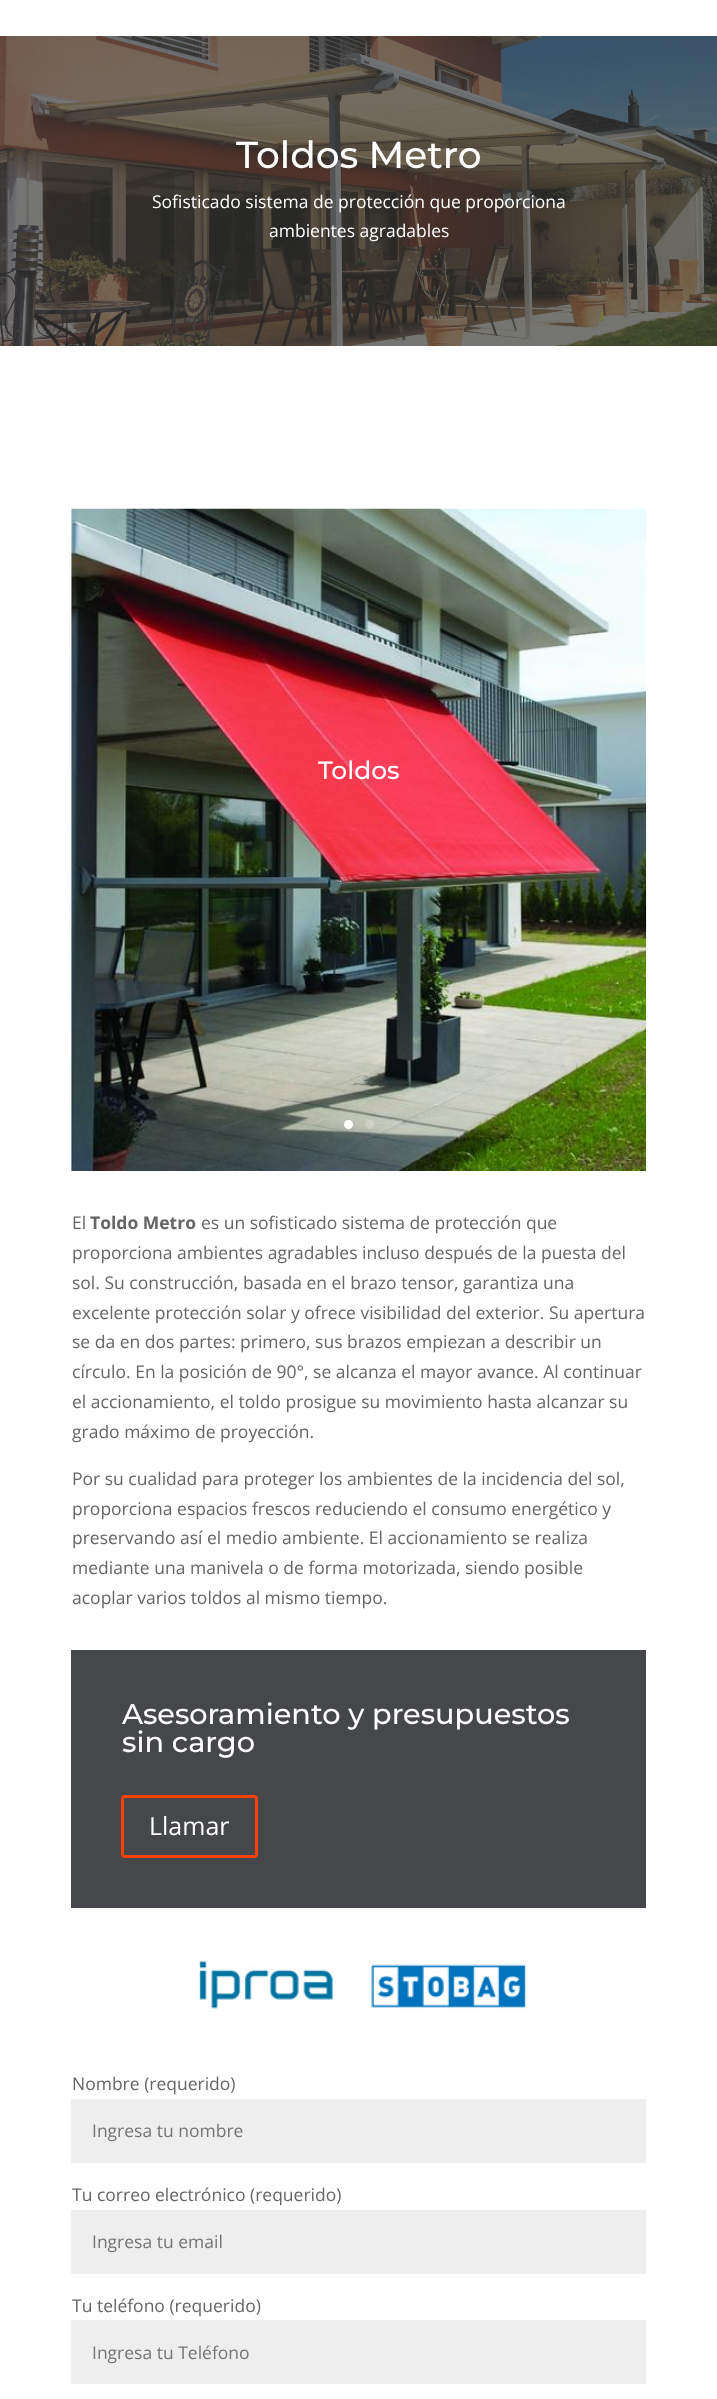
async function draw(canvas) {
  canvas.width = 717;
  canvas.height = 2399;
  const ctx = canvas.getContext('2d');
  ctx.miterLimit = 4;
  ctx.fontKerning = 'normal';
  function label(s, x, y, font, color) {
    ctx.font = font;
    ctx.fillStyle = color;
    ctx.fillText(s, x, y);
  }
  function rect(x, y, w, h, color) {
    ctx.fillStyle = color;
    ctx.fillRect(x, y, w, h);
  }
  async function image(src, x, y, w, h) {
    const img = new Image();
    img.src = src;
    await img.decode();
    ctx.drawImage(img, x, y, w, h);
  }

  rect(0, 0, 717, 2399, '#fff');
  await image('assets/img1.png', 0, 36, 717, 310);
  label('Toldos Metro', 236, 168, '500 37.5px Montserrat', '#fff');
  label('Sofisticado sistema de protección que proporciona', 152, 208, '17.5px Open Sans', '#fff');
  label('ambientes agradables', 269, 237, '17.5px Open Sans', '#fff');
  await image('assets/img2.png', 71, 508, 576, 663);
  label('Toldos', 318, 779, '500 25px Montserrat', '#fff');
  ctx.beginPath();
  ctx.arc(348.5, 1124.5, 4.5, 0, 2 * Math.PI);
  ctx.fill();
  ctx.fillStyle = '#ffffff40';
  ctx.beginPath();
  ctx.arc(369.5, 1124.5, 4.5, 0, 2 * Math.PI);
  ctx.fill();
  label('El', 72, 1229, '17.5px Open Sans', '#666');
  label('Toldo Metro', 90, 1229, 'bold 17.5px Open Sans', '#666');
  label('es un sofisticado sistema de protección que', 201, 1229, '17.5px Open Sans', '#666');
  label('proporciona ambientes agradables incluso después de la puesta del', 72, 1259, '17.5px Open Sans', '#666');
  label('sol. Su construcción, basada en el brazo tensor, garantiza una', 72, 1289, '17.5px Open Sans', '#666');
  label('excelente protección solar y ofrece visibilidad del exterior. Su apertura', 72, 1319, '17.5px Open Sans', '#666');
  label('se da en dos partes: primero, sus brazos empiezan a describir un', 72, 1348, '17.5px Open Sans', '#666');
  label('círculo. En la posición de 90°, se alcanza el mayor avance. Al continuar', 72, 1378, '17.5px Open Sans', '#666');
  label('el accionamiento, el toldo prosigue su movimiento hasta alcanzar su', 72, 1408, '17.5px Open Sans', '#666');
  label('grado máximo de proyección.', 72, 1438, '17.5px Open Sans', '#666');
  label('Por su cualidad para proteger los ambientes de la incidencia del sol,', 72, 1485, '17.5px Open Sans', '#666');
  label('proporciona espacios frescos reduciendo el consumo energético y', 72, 1515, '17.5px Open Sans', '#666');
  label('preservando así el medio ambiente. El accionamiento se realiza', 72, 1544, '17.5px Open Sans', '#666');
  label('mediante una manivela o de forma motorizada, siendo posible', 72, 1574, '17.5px Open Sans', '#666');
  label('acoplar varios toldos al mismo tiempo.', 72, 1604, '17.5px Open Sans', '#666');
  rect(71, 1650, 575, 258, '#46474b');
  label('Asesoramiento y presupuestos', 122, 1724, '500 28.75px Montserrat', '#fff');
  label('sin cargo', 122, 1752, '500 28.75px Montserrat', '#fff');
  ctx.beginPath();
  ctx.roundRect(122.5, 1796.5, 134, 60, 2.5);
  ctx.strokeStyle = '#f74100';
  ctx.lineWidth = 3;
  ctx.stroke();
  label('Llamar', 149, 1835, '25px Open Sans', '#fff');
  await image('assets/img3.png', 198, 1960, 329, 52);
  label('Nombre (requerido)', 72, 2090, '17.5px Open Sans', '#666');
  rect(71, 2099, 575, 64, '#eee');
  label('Ingresa tu nombre', 92, 2137, '17.5px Open Sans', '#757575');
  label('Tu correo electrónico (requerido)', 72, 2201, '17.5px Open Sans', '#666');
  rect(71, 2210, 575, 64, '#eee');
  label('Ingresa tu email', 92, 2248, '17.5px Open Sans', '#757575');
  label('Tu teléfono (requerido)', 72, 2312, '17.5px Open Sans', '#666');
  rect(71, 2320, 575, 64, '#eee');
  label('Ingresa tu Teléfono', 92, 2359, '17.5px Open Sans', '#757575');
}

draw(document.querySelector('canvas'));
